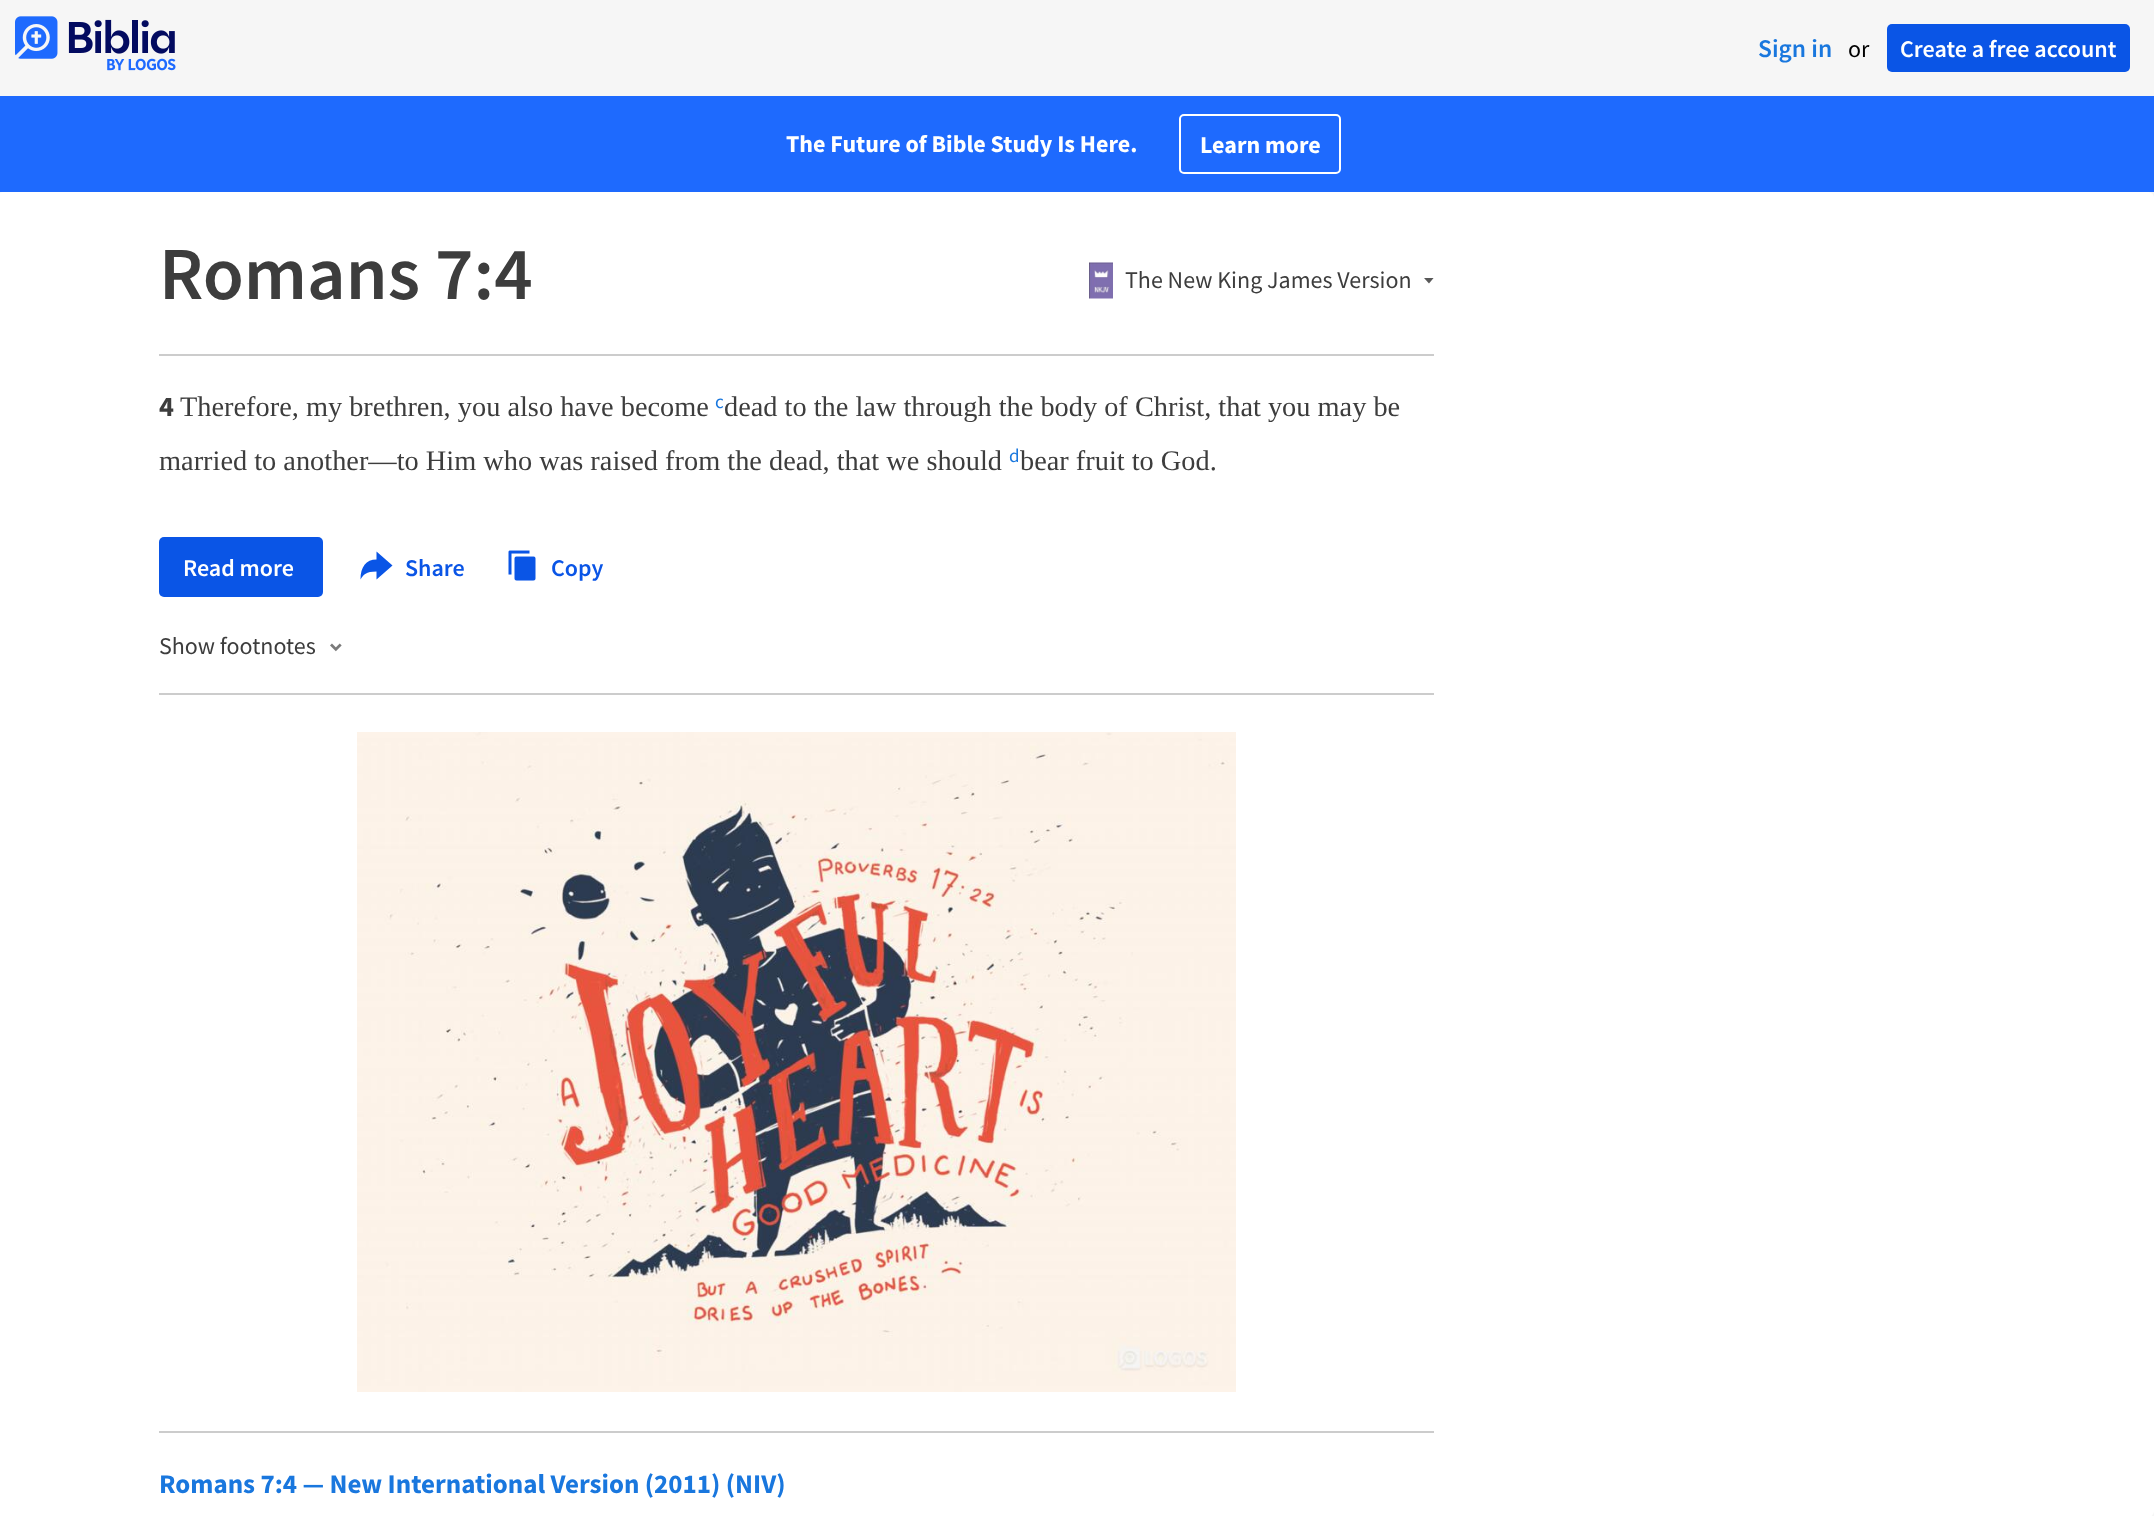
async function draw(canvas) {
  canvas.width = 2154;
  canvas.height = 1516;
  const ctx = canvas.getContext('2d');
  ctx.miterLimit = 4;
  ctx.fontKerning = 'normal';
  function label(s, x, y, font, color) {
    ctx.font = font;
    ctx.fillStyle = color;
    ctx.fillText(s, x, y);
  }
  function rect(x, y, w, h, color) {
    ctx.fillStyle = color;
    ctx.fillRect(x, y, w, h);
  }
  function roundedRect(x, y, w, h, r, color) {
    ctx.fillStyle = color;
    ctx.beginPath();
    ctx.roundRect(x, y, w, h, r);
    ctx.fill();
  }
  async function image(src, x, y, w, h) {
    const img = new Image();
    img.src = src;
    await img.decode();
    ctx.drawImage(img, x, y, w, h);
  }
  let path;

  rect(0, 0, 2154, 1516, '#f6f6f6');
  await image('assets/img1.png', 15, 16, 161, 55);
  label('Sign in', 1758, 57, '600 25.5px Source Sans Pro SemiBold', '#1977de');
  label('or', 1848, 57, '24px Source Sans Pro', '#000');
  roundedRect(1887, 24, 243, 48, 5, '#0a55e6');
  label('Create a free account', 1900, 57, '600 24px Source Sans Pro SemiBold', '#fff');
  rect(0, 96, 2154, 96, '#1e6afe');
  label('The Future of Bible Study Is Here.', 786, 152, 'bold 24px Source Sans Pro', '#fff');
  ctx.beginPath();
  ctx.roundRect(1180, 115, 160, 58, 4);
  ctx.strokeStyle = '#fff';
  ctx.lineWidth = 2;
  ctx.stroke();
  label('Learn more', 1200, 153, 'bold 24px Source Sans Pro', '#fff');
  roundedRect(-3, 192, 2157, 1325, 6, '#fff');
  rect(159, 354, 1275, 2, '#ccc');
  label('Romans 7:4', 159, 299, '600 75px Source Sans Pro SemiBold', '#3d3d3d');
  await image('assets/img2.png', 1089, 262, 24, 37);
  label('The New King James Version', 1125, 288, '24px Source Sans Pro', '#3d3d3d');
  ctx.save();
  ctx.beginPath();
  ctx.rect(1424, 278, 10, 6);
  ctx.clip();
  ctx.fillStyle = '#585858';
  path = new Path2D('M1429 283.5L1434 277.5H1423.5Z');
  ctx.fill(path, 'evenodd');
  ctx.restore();
  label('4', 159, 416, 'bold 28.35px Source Sans Pro', '#3d3d3d');
  label('Therefore, my brethren, you also have become', 180, 416, '28.35px Liberation Serif', '#3d3d3d');
  label('c', 715, 408, '19px Source Sans Pro', '#1977de');
  label('dead to the law through the body of Christ, that you may be', 724, 416, '28.35px Liberation Serif', '#3d3d3d');
  label('married to another—to Him who was raised from the dead, that we should', 159, 470, '28.35px Liberation Serif', '#3d3d3d');
  label('d', 1009, 462, '19px Source Sans Pro', '#1977de');
  label('bear fruit to God.', 1020, 470, '28.35px Liberation Serif', '#3d3d3d');
  roundedRect(159, 537, 164, 60, 5, '#0a55e6');
  label('Read more', 183, 576, '600 24px Source Sans Pro SemiBold', '#fff');
  label('Share', 405, 576, '600 24px Source Sans Pro SemiBold', '#0a55e6');
  path = new Path2D('M376.5 559.5V551.5L392.5 565.5L376.5 579.5V571.5C366 571.5 363.5 574.5 360.5 579.5C360.5 567 366 559.5 376.5 559.5Z');
  ctx.fill(path, 'evenodd');
  await image('assets/img3.png', 508, 550, 28, 31);
  label('Copy', 551, 576, '600 24px Source Sans Pro SemiBold', '#0a55e6');
  label('Show footnotes', 159, 654, '24px Source Sans Pro', '#3d3d3d');
  await image('assets/img4.png', 330, 643, 12, 9);
  rect(159, 693, 1275, 2, '#ccc');
  await image('assets/img5.png', 357, 732, 879, 660);
  rect(159, 1431, 1275, 2, '#ccc');
  label('Romans 7:4 — New International Version (2011) (NIV)', 159, 1493, 'bold 27px Source Sans Pro', '#1977de');
}

draw(document.querySelector('canvas'));
